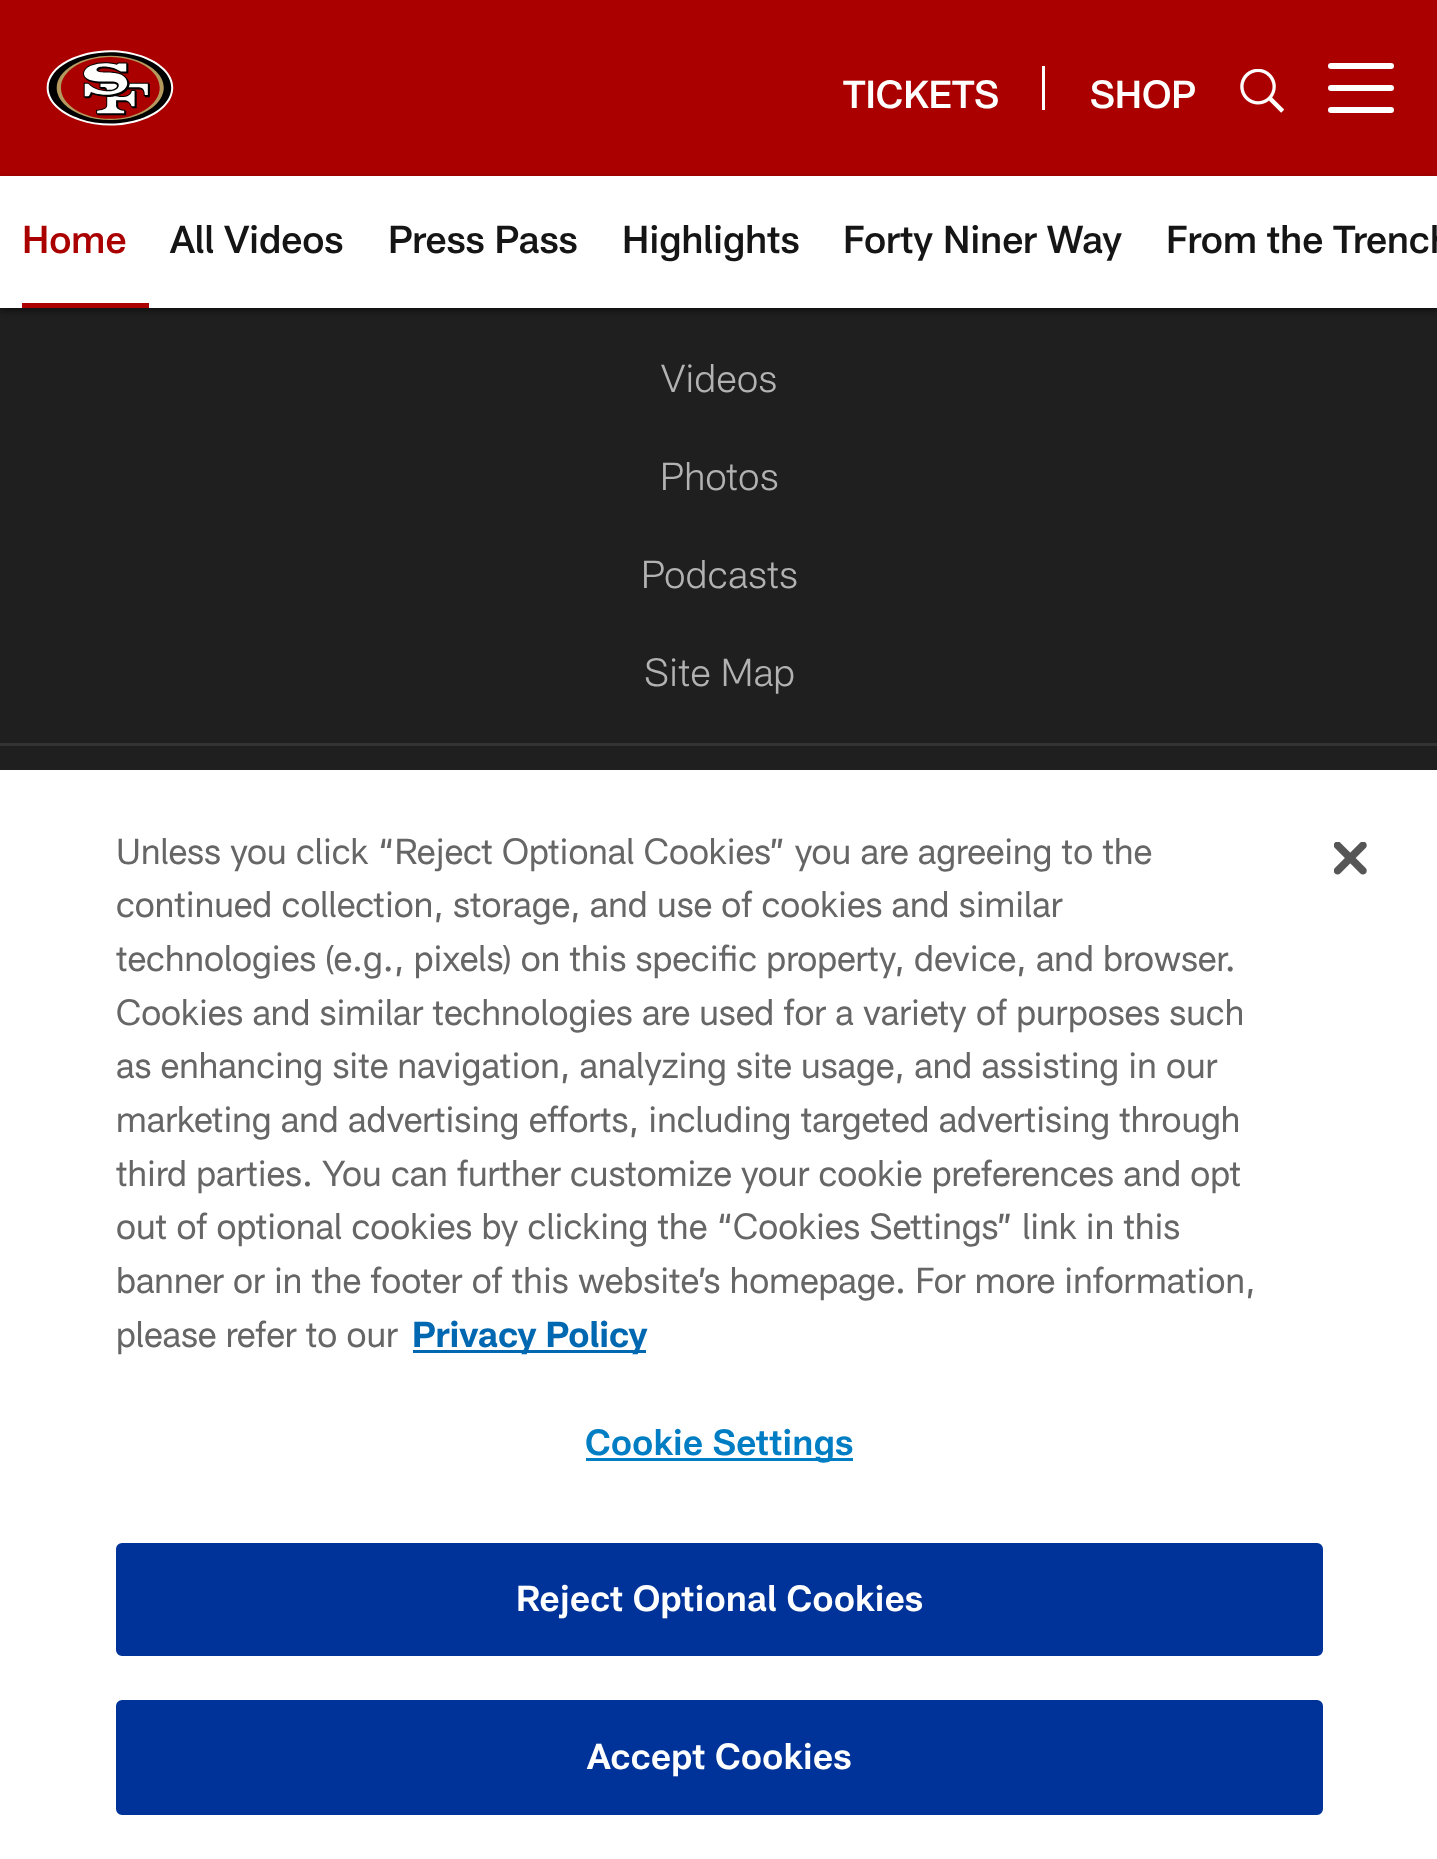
async function draw(canvas) {
  canvas.width = 1437;
  canvas.height = 1859;
  const ctx = canvas.getContext('2d');
  ctx.miterLimit = 4;
  ctx.fontKerning = 'normal';
  function label(s, x, y, font, color) {
    ctx.font = font;
    ctx.fillStyle = color;
    ctx.fillText(s, x, y);
  }
  function rect(x, y, w, h, color) {
    ctx.fillStyle = color;
    ctx.fillRect(x, y, w, h);
  }
  function roundedRect(x, y, w, h, r, color) {
    ctx.fillStyle = color;
    ctx.beginPath();
    ctx.roundRect(x, y, w, h, r);
    ctx.fill();
  }
  async function image(src, x, y, w, h) {
    const img = new Image();
    img.src = src;
    await img.decode();
    ctx.drawImage(img, x, y, w, h);
  }

  rect(0, 0, 1437, 1859, '#1f1f1f');
  rect(0, 0, 1437, 176, '#a00');
  await image('assets/img1.png', 46, 50, 128, 76);
  label('TICKETS', 843, 108, '500 38.5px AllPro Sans', '#fff');
  rect(1042, 66, 3, 44, '#fff');
  label('SHOP', 1090, 108, '500 38.5px AllPro Sans', '#fff');
  await image('assets/img2.png', 1240, 69, 44, 44);
  roundedRect(1328, 85, 66, 6, 3, '#fff');
  roundedRect(1328, 63, 66, 6, 3, '#fff');
  roundedRect(1328, 107, 66, 6, 3, '#fff');
  ctx.fillStyle = '#00000078';
  ctx.filter = 'blur(3px)';
  ctx.beginPath();
  ctx.rect(0, 179, 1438, 132);
  ctx.fill();
  ctx.filter = 'none';
  rect(0, 176, 1437, 132, '#fff');
  rect(22, 303, 127, 5, '#a00');
  label('Home', 22, 253, '500 38.5px AllPro Sans', '#a00');
  label('All Videos', 170, 253, '500 38.5px AllPro Sans', '#151515');
  label('Press Pass', 388, 253, '500 38.5px AllPro Sans', '#151515');
  label('Highlights', 622, 253, '500 38.5px AllPro Sans', '#151515');
  label('Forty Niner Way', 843, 253, '500 38.5px AllPro Sans', '#151515');
  label('From the Trench', 1166, 253, '500 38.5px AllPro Sans', '#151515');
  label('Videos', 661, 392, '300 38.5px AllPro Sans', '#b2b2b2');
  label('Photos', 660, 490, '300 38.5px AllPro Sans', '#b2b2b2');
  label('Podcasts', 641, 588, '300 38.5px AllPro Sans', '#b2b2b2');
  label('Site Map', 644, 686, '300 38.5px AllPro Sans', '#b2b2b2');
  rect(0, 743, 1437, 3, '#333');
  rect(0, 770, 1437, 1089, '#fff');
  label('Unless you click “Reject Optional Cookies” you are agreeing to the', 116, 864, '35.75px AllPro Sans', '#666');
  label('continued collection, storage, and use of cookies and similar', 116, 917, '35.75px AllPro Sans', '#666');
  label('technologies (e.g., pixels) on this specific property, device, and browser.', 116, 971, '35.75px AllPro Sans', '#666');
  label('Cookies and similar technologies are used for a variety of purposes such', 116, 1025, '35.75px AllPro Sans', '#666');
  label('as enhancing site navigation, analyzing site usage, and assisting in our', 116, 1078, '35.75px AllPro Sans', '#666');
  label('marketing and advertising efforts, including targeted advertising through', 116, 1132, '35.75px AllPro Sans', '#666');
  label('third parties. You can further customize your cookie preferences and opt', 116, 1186, '35.75px AllPro Sans', '#666');
  label('out of optional cookies by clicking the “Cookies Settings” link in this', 116, 1239, '35.75px AllPro Sans', '#666');
  label('banner or in the footer of this website’s homepage. For more information,', 116, 1293, '35.75px AllPro Sans', '#666');
  label('please refer to our', 116, 1347, '35.75px AllPro Sans', '#666');
  rect(413, 1350, 233, 3, '#0067b1');
  label('Privacy Policy', 412, 1347, 'bold 35.75px AllPro Sans', '#0067b1');
  rect(586, 1458, 267, 3, '#007dc3');
  ctx.letterSpacing = '0.4px';
  label('Cookie Settings', 585, 1455, '600 35.75px AllPro Sans', '#007dc3');
  ctx.fillStyle = '#039';
  ctx.beginPath();
  ctx.roundRect(117.5, 1544.5, 1204, 110, 4.5);
  ctx.fill();
  ctx.strokeStyle = '#039';
  ctx.lineWidth = 3;
  ctx.stroke();
  label('Reject Optional Cookies', 516, 1611, '600 35.75px AllPro Sans', '#fff');
  ctx.fillStyle = '#039';
  ctx.beginPath();
  ctx.roundRect(117.5, 1701.5, 1204, 112, 4.5);
  ctx.fill();
  ctx.stroke();
  label('Accept Cookies', 587, 1769, '600 35.75px AllPro Sans', '#fff');
  await image('assets/img3.png', 1334, 842, 33, 33);
}

draw(document.querySelector('canvas'));
